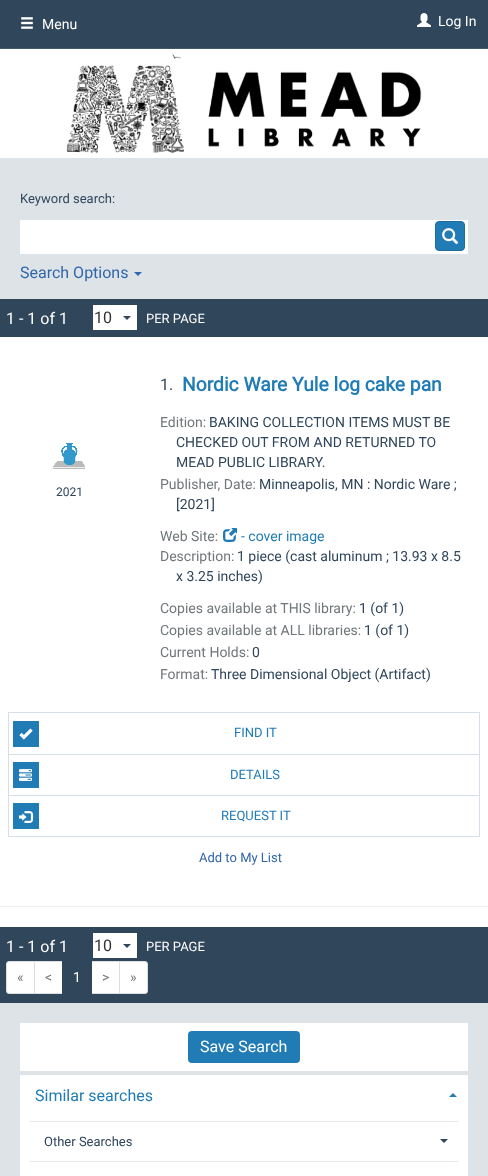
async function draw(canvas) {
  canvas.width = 488;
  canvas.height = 1176;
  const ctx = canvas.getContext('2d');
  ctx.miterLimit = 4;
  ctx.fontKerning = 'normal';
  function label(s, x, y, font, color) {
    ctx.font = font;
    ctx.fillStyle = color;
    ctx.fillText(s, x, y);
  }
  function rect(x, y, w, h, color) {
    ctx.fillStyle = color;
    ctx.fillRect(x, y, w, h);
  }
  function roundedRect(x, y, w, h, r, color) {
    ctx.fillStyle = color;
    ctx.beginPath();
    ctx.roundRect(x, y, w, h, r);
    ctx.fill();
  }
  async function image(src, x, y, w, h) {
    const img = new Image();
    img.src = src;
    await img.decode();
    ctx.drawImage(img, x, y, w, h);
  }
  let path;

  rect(0, 0, 488, 1176, '#30465b');
  await image('assets/img1.png', 21, 17, 12, 12);
  label('Menu', 42, 29, '14px Roboto', '#fff');
  await image('assets/img2.png', 417, 13, 14, 14);
  label('Log In', 438, 26, '14px Roboto', '#fff');
  rect(0, 49, 488, 109, '#fff');
  await image('assets/img3.png', 0, 48, 488, 105);
  rect(0, 1003, 488, 173, '#dee3e8');
  rect(0, 337, 488, 590, '#fff');
  rect(0, 158, 488, 141, '#dee3e8');
  label('Keyword search:', 20, 203, '13px Roboto', '#30465b');
  rect(20, 220, 448, 34, '#fff');
  ctx.fillStyle = '#217cb5';
  ctx.beginPath();
  ctx.roundRect(435.5, 221.5, 29, 29, 3.5);
  ctx.fill();
  ctx.strokeStyle = '#1d6d9f';
  ctx.stroke();
  await image('assets/img4.png', 442, 228, 17, 17);
  label('Search Options', 20, 278, '16px Roboto', '#3166aa');
  path = new Path2D('M134 272H142L138 276Z');
  ctx.fill(path);
  label('1 - 1 of 1', 6, 324, '16px Roboto', '#fff');
  rect(93, 305, 44, 25, '#fff');
  label('10', 94, 323, '16px Roboto', '#333');
  ctx.fillStyle = '#30465b';
  path = new Path2D('M123 316H131L127 320Z');
  ctx.fill(path);
  label('PER PAGE', 146, 323, '13px Roboto', '#fff');
  await image('assets/img5.png', 53, 443, 32, 26);
  label('2021', 56, 496, '12px Roboto', '#30465b');
  label('1.', 160, 390, '16px Roboto', '#30465b');
  label('Nordic Ware Yule log cake pan', 182, 391, 'bold 19.25px Roboto', '#217cb5');
  label('Edition:', 160, 427, '14px Roboto', '#71777a');
  label('BAKING COLLECTION ITEMS MUST BE', 209, 427, '14px Roboto', '#30465b');
  label('CHECKED OUT FROM AND RETURNED TO', 176, 447, '14px Roboto', '#30465b');
  label('MEAD PUBLIC LIBRARY.', 176, 467, '14px Roboto', '#30465b');
  label('Publisher, Date:', 160, 489, '14px Roboto', '#71777a');
  label('Minneapolis, MN : Nordic Ware ;', 259, 489, '14px Roboto', '#30465b');
  label('[2021]', 176, 509, '14px Roboto', '#30465b');
  label('Web Site:', 160, 541, '14px Roboto', '#71777a');
  await image('assets/img6.png', 223, 528, 14, 14);
  label('- cover image', 241, 541, '14px Roboto', '#217cb5');
  label('Description:', 160, 561, '14px Roboto', '#71777a');
  label('1 piece (cast aluminum ; 13.93 x 8.5', 237, 561, '14px Roboto', '#30465b');
  label('x 3.25 inches)', 176, 581, '14px Roboto', '#30465b');
  label('Copies available at THIS library:', 160, 613, '14px Roboto', '#71777a');
  label('1 (of 1)', 359, 613, '14px Roboto', '#30465b');
  label('Copies available at ALL libraries:', 160, 635, '14px Roboto', '#71777a');
  label('1 (of 1)', 364, 635, '14px Roboto', '#30465b');
  label('Current Holds:', 160, 657, '14px Roboto', '#71777a');
  label('0', 252, 657, '14px Roboto', '#30465b');
  label('Format:', 160, 679, '14px Roboto', '#71777a');
  label('Three Dimensional Object (Artifact)', 211, 679, '14px Roboto', '#30465b');
  rect(8, 836, 472, 1, '#d4dfe9');
  rect(8, 712, 472, 1, '#d4dfe9');
  rect(479, 712, 1, 42, '#d4dfe9');
  rect(8, 712, 1, 42, '#d4dfe9');
  rect(13, 721, 26, 26, '#217cb5');
  await image('assets/img7.png', 19, 728, 14, 12);
  label('FIND IT', 234, 737, '13px Roboto', '#217cb5');
  rect(8, 754, 472, 1, '#d4dfe9');
  rect(479, 754, 1, 41, '#d4dfe9');
  rect(8, 754, 1, 41, '#d4dfe9');
  rect(13, 762, 26, 26, '#217cb5');
  await image('assets/img8.png', 19, 769, 13, 12);
  label('DETAILS', 230, 779, '13px Roboto', '#217cb5');
  rect(8, 795, 472, 1, '#d4dfe9');
  rect(479, 795, 1, 41, '#d4dfe9');
  rect(8, 795, 1, 41, '#d4dfe9');
  rect(13, 803, 26, 26, '#217cb5');
  await image('assets/img9.png', 19, 811, 15, 12);
  label('REQUEST IT', 221, 820, '13px Roboto', '#217cb5');
  label('Add to My List', 199, 862, '13px Roboto', '#3166aa');
  rect(0, 906, 488, 1, '#eee');
  label('1 - 1 of 1', 6, 952, '16px Roboto', '#fff');
  rect(93, 933, 44, 25, '#fff');
  label('10', 94, 951, '16px Roboto', '#333');
  ctx.fillStyle = '#30465b';
  path = new Path2D('M123 944H131L127 948Z');
  ctx.fill(path);
  label('PER PAGE', 146, 951, '13px Roboto', '#fff');
  ctx.beginPath();
  ctx.roundRect(6.5, 961.5, 28, 32, [2.5, 0, 0, 2.5]);
  ctx.fill();
  ctx.strokeStyle = '#ddd';
  ctx.stroke();
  label('«', 17, 982, '14px Roboto', '#71777a');
  ctx.fillStyle = '#fff';
  ctx.beginPath();
  ctx.rect(34.5, 961.5, 28, 32);
  ctx.fill();
  ctx.stroke();
  label('<', 45, 982, '14px Roboto', '#71777a');
  ctx.fillStyle = '#fff';
  ctx.beginPath();
  ctx.rect(91.5, 961.5, 28, 32);
  ctx.fill();
  ctx.stroke();
  rect(62, 961, 30, 33, '#30465b');
  label('1', 73, 982, '14px Roboto', '#fff');
  label('>', 102, 982, '14px Roboto', '#71777a');
  ctx.fillStyle = '#fff';
  ctx.beginPath();
  ctx.roundRect(119.5, 961.5, 28, 32, [0, 2.5, 2.5, 0]);
  ctx.fill();
  ctx.stroke();
  label('»', 130, 982, '14px Roboto', '#71777a');
  rect(20, 1023, 448, 48, '#fff');
  roundedRect(188, 1031, 112, 32, 4, '#217cb5');
  label('Save Search', 200, 1052, '16px Roboto', '#fff');
  rect(20, 1075, 448, 101, '#fff');
  label('Similar searches', 35, 1101, '16px Roboto', '#217cb5');
  path = new Path2D('M457 1097H449L453 1093Z');
  ctx.fill(path);
  rect(29, 1121, 430, 1, '#e5ebf1');
  label('Other Searches', 44, 1146, '13px Roboto', '#30465b');
  path = new Path2D('M440 1139H448L444 1143Z');
  ctx.fill(path);
  rect(29, 1161, 430, 1, '#e5ebf1');
}

draw(document.querySelector('canvas'));
